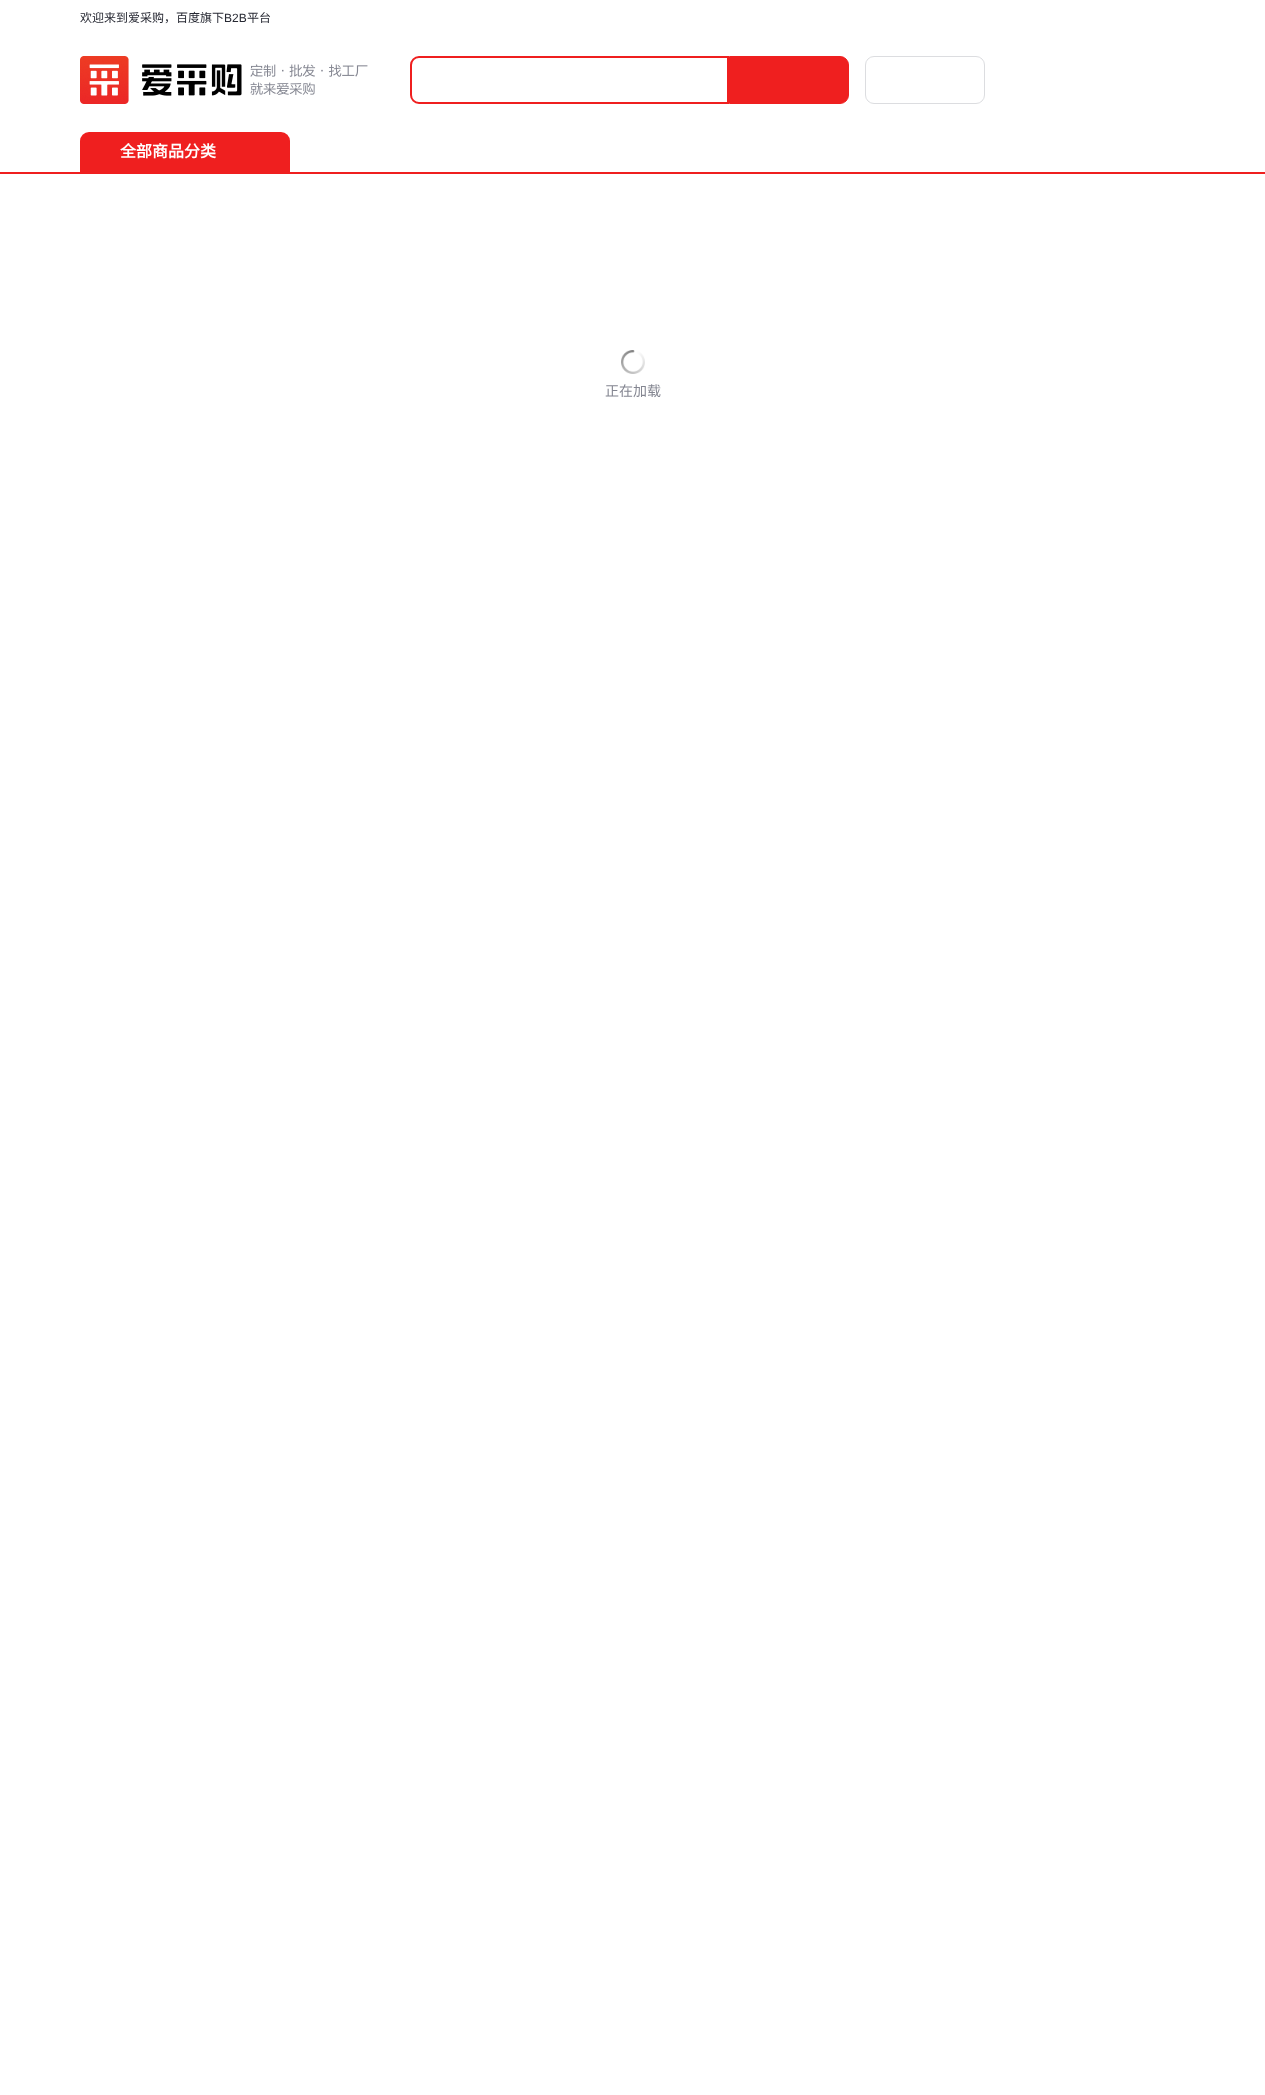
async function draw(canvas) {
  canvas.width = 1265;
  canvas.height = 2095;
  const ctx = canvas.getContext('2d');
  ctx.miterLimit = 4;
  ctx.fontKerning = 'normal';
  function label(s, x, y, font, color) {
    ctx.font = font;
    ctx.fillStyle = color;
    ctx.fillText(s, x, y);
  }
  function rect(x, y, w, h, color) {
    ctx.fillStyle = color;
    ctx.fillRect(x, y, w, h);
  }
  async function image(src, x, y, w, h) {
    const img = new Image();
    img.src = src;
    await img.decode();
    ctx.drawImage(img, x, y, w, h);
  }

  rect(0, 0, 1265, 2095, '#fff');
  label('欢迎来到爱采购，百度旗下', 80, 22, '12px Noto Sans CJK SC', '#272933');
  label('B2B', 224, 22, '12px Liberation Sans', '#272933');
  label('平台', 247, 22, '12px Noto Sans CJK SC', '#272933');
  await image('assets/img1.png', 80, 56, 288, 48);
  ctx.beginPath();
  ctx.roundRect(411, 57, 317, 46, [8, 0, 0, 8]);
  ctx.strokeStyle = '#ef1f1f';
  ctx.lineWidth = 2;
  ctx.stroke();
  ctx.fillStyle = '#ef1f1f';
  ctx.beginPath();
  ctx.roundRect(729.5, 56.5, 119, 47, [0, 8.5, 8.5, 0]);
  ctx.fill();
  ctx.lineWidth = 1;
  ctx.stroke();
  ctx.beginPath();
  ctx.roundRect(865.5, 56.5, 119, 47, 8.5);
  ctx.strokeStyle = '#dcdde0';
  ctx.stroke();
  rect(0, 172, 1265, 2, '#ef1f1f');
  ctx.beginPath();
  ctx.roundRect(80, 132, 210, 40, [9, 9, 0, 0]);
  ctx.fill();
  label('全部商品分类', 120, 157, 'bold 16px Noto Sans CJK SC', '#fff');
  await image('assets/img2.png', 621, 350, 24, 24);
  label('正在加载', 605, 396, '14px Noto Sans CJK SC', '#848691');
}

draw(document.querySelector('canvas'));
